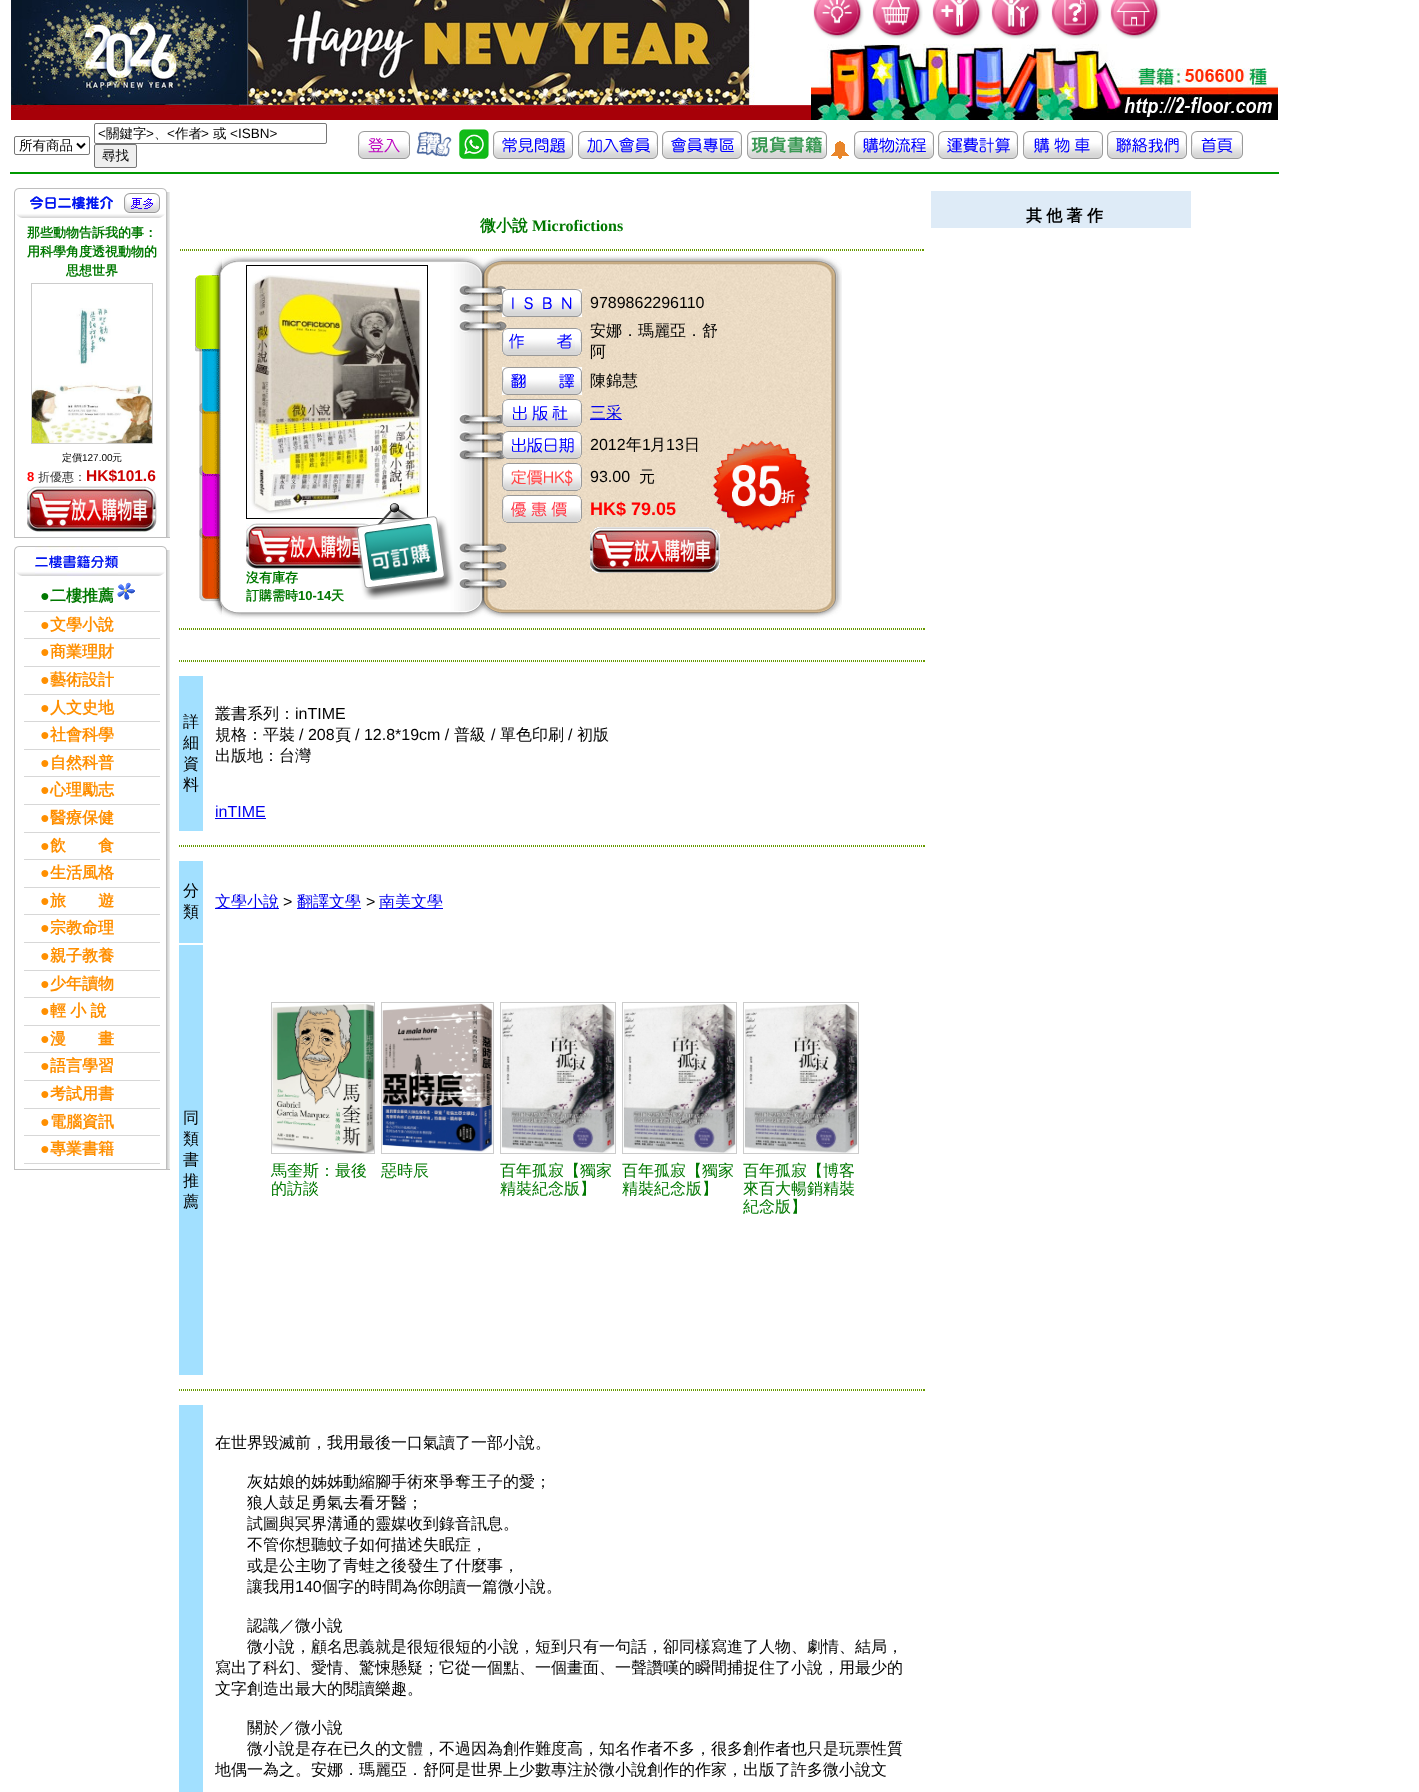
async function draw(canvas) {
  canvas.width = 1419;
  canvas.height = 1792;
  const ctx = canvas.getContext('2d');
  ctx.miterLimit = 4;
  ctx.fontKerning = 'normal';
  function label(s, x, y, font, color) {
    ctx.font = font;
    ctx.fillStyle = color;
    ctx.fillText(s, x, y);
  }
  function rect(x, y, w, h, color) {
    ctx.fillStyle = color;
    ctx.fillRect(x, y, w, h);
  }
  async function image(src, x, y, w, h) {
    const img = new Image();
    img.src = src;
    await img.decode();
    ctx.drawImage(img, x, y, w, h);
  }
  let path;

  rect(0, 0, 1419, 1792, '#fff');
  await image('assets/img1.png', 195, 255, 647, 364);
  rect(10, 172, 1269, 2, '#090');
  await image('assets/img2.png', 11, 0, 800, 120);
  await image('assets/img3.png', 813, 0, 51, 39);
  await image('assets/img4.png', 872, 0, 51, 39);
  await image('assets/img5.png', 932, 0, 51, 39);
  await image('assets/img6.png', 991, 0, 51, 39);
  await image('assets/img7.png', 1051, 0, 51, 39);
  await image('assets/img8.png', 1110, 0, 51, 39);
  await image('assets/img9.png', 811, 44, 467, 76);
  ctx.beginPath();
  ctx.roundRect(14.5, 136.5, 75, 18, 1.5);
  ctx.strokeStyle = '#767676';
  ctx.stroke();
  path = new Path2D('M77 143.5L81 147.5L85 143.5');
  ctx.strokeStyle = '#000';
  ctx.lineWidth = 2;
  ctx.stroke(path);
  label('所有商品', 19, 150, '500 13.5px WenQuanYi Zen Hei', '#000');
  ctx.beginPath();
  ctx.roundRect(94.5, 123.5, 232, 20, 1.5);
  ctx.strokeStyle = '#767676';
  ctx.lineWidth = 1;
  ctx.stroke();
  label('<', 98, 138, '13.5px Liberation Sans', '#000');
  label('關鍵字', 106, 138, '500 13.5px WenQuanYi Zen Hei', '#000');
  label('>', 146, 138, '13.5px Liberation Sans', '#000');
  label('<', 167, 138, '13.5px Liberation Sans', '#000');
  label('作者', 175, 138, '500 13.5px WenQuanYi Zen Hei', '#000');
  label('>', 201, 138, '13.5px Liberation Sans', '#000');
  label('或', 213, 138, '500 13.5px WenQuanYi Zen Hei', '#000');
  label('<ISBN>', 230, 138, '13.5px Liberation Sans', '#000');
  label('、', 154, 138, '500 13.5px WenQuanYi Zen Hei', '#000');
  ctx.fillStyle = '#efefef';
  ctx.beginPath();
  ctx.roundRect(94.5, 144.5, 42, 23, 1.5);
  ctx.fill();
  ctx.stroke();
  label('尋找', 102, 160, '500 13.5px WenQuanYi Zen Hei', '#000');
  await image('assets/img10.png', 358, 131, 52, 28);
  await image('assets/img11.png', 416, 131, 36, 26);
  await image('assets/img12.png', 459, 129, 30, 30);
  await image('assets/img13.png', 493, 131, 80, 28);
  await image('assets/img14.png', 578, 131, 80, 28);
  await image('assets/img15.png', 662, 131, 80, 28);
  await image('assets/img16.png', 747, 131, 80, 28);
  await image('assets/img17.png', 831, 141, 18, 18);
  await image('assets/img18.png', 854, 131, 80, 28);
  await image('assets/img19.png', 938, 131, 80, 28);
  await image('assets/img20.png', 1023, 131, 80, 28);
  await image('assets/img21.png', 1107, 131, 80, 28);
  await image('assets/img22.png', 1191, 131, 52, 28);
  await image('assets/img23.png', 14, 188, 156, 30);
  await image('assets/img24.png', 30, 196, 83, 14);
  await image('assets/img25.png', 124, 193, 36, 20);
  await image('assets/img26.png', 14, 218, 156, 319);
  rect(14, 537, 156, 1, '#bebebe');
  label('那些動物告訴我的事：', 27, 237, 'bold 13px WenQuanYi Zen Hei', '#007800');
  label('用科學角度透視動物的', 27, 256, 'bold 13px WenQuanYi Zen Hei', '#007800');
  label('思想世界', 66, 275, 'bold 13px WenQuanYi Zen Hei', '#007800');
  ctx.strokeStyle = '#ccc';
  ctx.strokeRect(31.5, 283.5, 121, 160);
  await image('assets/img27.png', 32, 308, 120, 135);
  label('定價', 62, 461, '500 10px WenQuanYi Zen Hei', '#000');
  label('127.00', 82, 461, '10px Liberation Sans', '#000');
  label('元', 112, 461, '500 10px WenQuanYi Zen Hei', '#000');
  label('8', 27, 481, 'bold 13px Liberation Sans', '#f00');
  label('折優惠：', 38, 481, '500 12px WenQuanYi Zen Hei', '#333');
  label('HK$101.6', 86, 481, 'bold 15.5px Liberation Sans', '#c00');
  await image('assets/img28.png', 27, 486, 130, 46);
  await image('assets/img29.png', 14, 546, 156, 30);
  await image('assets/img30.png', 35, 546, 83, 30);
  await image('assets/img31.png', 14, 576, 156, 593);
  rect(14, 1169, 156, 1, '#bebebe');
  rect(24, 611, 136, 1, '#d7d7d7');
  label('●', 40, 601, 'bold 16px Liberation Sans', '#007800');
  label('二樓推薦', 50, 601, 'bold 16px WenQuanYi Zen Hei', '#007800');
  await image('assets/img32.png', 117, 582, 18, 18);
  rect(24, 638, 136, 1, '#d7d7d7');
  label('●', 40, 630, 'bold 16px Liberation Sans', '#ff8f00');
  label('文學小說', 50, 630, 'bold 16px WenQuanYi Zen Hei', '#ff8f00');
  rect(24, 666, 136, 1, '#d7d7d7');
  label('●', 40, 657, 'bold 16px Liberation Sans', '#ff8f00');
  label('商業理財', 50, 657, 'bold 16px WenQuanYi Zen Hei', '#ff8f00');
  rect(24, 694, 136, 1, '#d7d7d7');
  label('●', 40, 685, 'bold 16px Liberation Sans', '#ff8f00');
  label('藝術設計', 50, 685, 'bold 16px WenQuanYi Zen Hei', '#ff8f00');
  rect(24, 721, 136, 1, '#d7d7d7');
  label('●', 40, 713, 'bold 16px Liberation Sans', '#ff8f00');
  label('人文史地', 50, 713, 'bold 16px WenQuanYi Zen Hei', '#ff8f00');
  rect(24, 749, 136, 1, '#d7d7d7');
  label('●', 40, 740, 'bold 16px Liberation Sans', '#ff8f00');
  label('社會科學', 50, 740, 'bold 16px WenQuanYi Zen Hei', '#ff8f00');
  rect(24, 776, 136, 1, '#d7d7d7');
  label('●', 40, 768, 'bold 16px Liberation Sans', '#ff8f00');
  label('自然科普', 50, 768, 'bold 16px WenQuanYi Zen Hei', '#ff8f00');
  rect(24, 804, 136, 1, '#d7d7d7');
  label('●', 40, 795, 'bold 16px Liberation Sans', '#ff8f00');
  label('心理勵志', 50, 795, 'bold 16px WenQuanYi Zen Hei', '#ff8f00');
  rect(24, 832, 136, 1, '#d7d7d7');
  label('●', 40, 823, 'bold 16px Liberation Sans', '#ff8f00');
  label('醫療保健', 50, 823, 'bold 16px WenQuanYi Zen Hei', '#ff8f00');
  rect(24, 859, 136, 1, '#d7d7d7');
  label('●', 40, 851, 'bold 16px Liberation Sans', '#ff8f00');
  label('飲　　食', 50, 851, 'bold 16px WenQuanYi Zen Hei', '#ff8f00');
  rect(24, 887, 136, 1, '#d7d7d7');
  label('●', 40, 878, 'bold 16px Liberation Sans', '#ff8f00');
  label('生活風格', 50, 878, 'bold 16px WenQuanYi Zen Hei', '#ff8f00');
  rect(24, 914, 136, 1, '#d7d7d7');
  label('●', 40, 906, 'bold 16px Liberation Sans', '#ff8f00');
  label('旅　　遊', 50, 906, 'bold 16px WenQuanYi Zen Hei', '#ff8f00');
  rect(24, 942, 136, 1, '#d7d7d7');
  label('●', 40, 933, 'bold 16px Liberation Sans', '#ff8f00');
  label('宗教命理', 50, 933, 'bold 16px WenQuanYi Zen Hei', '#ff8f00');
  rect(24, 970, 136, 1, '#d7d7d7');
  label('●', 40, 961, 'bold 16px Liberation Sans', '#ff8f00');
  label('親子教養', 50, 961, 'bold 16px WenQuanYi Zen Hei', '#ff8f00');
  rect(24, 997, 136, 1, '#d7d7d7');
  label('●', 40, 989, 'bold 16px Liberation Sans', '#ff8f00');
  label('少年讀物', 50, 989, 'bold 16px WenQuanYi Zen Hei', '#ff8f00');
  rect(24, 1025, 136, 1, '#d7d7d7');
  label('●', 40, 1016, 'bold 16px Liberation Sans', '#ff8f00');
  ctx.wordSpacing = '-0.5px';
  label('輕 小 說', 50, 1016, 'bold 16px WenQuanYi Zen Hei', '#ff8f00');
  rect(24, 1052, 136, 1, '#d7d7d7');
  ctx.wordSpacing = '0px';
  label('●', 40, 1044, 'bold 16px Liberation Sans', '#ff8f00');
  label('漫　　畫', 50, 1044, 'bold 16px WenQuanYi Zen Hei', '#ff8f00');
  rect(24, 1080, 136, 1, '#d7d7d7');
  label('●', 40, 1071, 'bold 16px Liberation Sans', '#ff8f00');
  label('語言學習', 50, 1071, 'bold 16px WenQuanYi Zen Hei', '#ff8f00');
  rect(24, 1108, 136, 1, '#d7d7d7');
  label('●', 40, 1099, 'bold 16px Liberation Sans', '#ff8f00');
  label('考試用書', 50, 1099, 'bold 16px WenQuanYi Zen Hei', '#ff8f00');
  rect(24, 1135, 136, 1, '#d7d7d7');
  label('●', 40, 1127, 'bold 16px Liberation Sans', '#ff8f00');
  label('電腦資訊', 50, 1127, 'bold 16px WenQuanYi Zen Hei', '#ff8f00');
  rect(24, 1163, 136, 1, '#d7d7d7');
  label('●', 40, 1154, 'bold 16px Liberation Sans', '#ff8f00');
  label('專業書籍', 50, 1154, 'bold 16px WenQuanYi Zen Hei', '#ff8f00');
  label('微小說', 480, 231, 'bold 16px WenQuanYi Zen Hei', '#007800');
  label('Microfictions', 532, 231, 'bold 16px Liberation Serif', '#007800');
  path = new Path2D('M180 249.5H924');
  ctx.strokeStyle = '#690';
  ctx.setLineDash([1, 1]);
  ctx.stroke(path);
  rect(923, 249, 1, 2, '#690');
  path = new Path2D('M180 250.5H924');
  ctx.stroke(path);
  await image('assets/img33.png', 502, 289, 80, 28);
  label('9789862296110', 590, 308, '16px Liberation Sans', '#000');
  await image('assets/img34.png', 502, 328, 80, 28);
  label('安娜．瑪麗亞．舒', 590, 336, '500 16px WenQuanYi Zen Hei', '#000');
  label('阿', 590, 357, '500 16px WenQuanYi Zen Hei', '#000');
  await image('assets/img35.png', 502, 367, 80, 28);
  label('陳錦慧', 590, 386, '500 16px WenQuanYi Zen Hei', '#000');
  await image('assets/img36.png', 502, 399, 80, 28);
  rect(590, 419, 32, 1, '#00e');
  label('三采', 590, 418, '500 16px WenQuanYi Zen Hei', '#00e');
  await image('assets/img37.png', 502, 431, 80, 28);
  label('2012', 590, 450, '16px Liberation Sans', '#000');
  label('年', 626, 450, '500 16px WenQuanYi Zen Hei', '#000');
  label('1', 642, 450, '16px Liberation Sans', '#000');
  label('月', 650, 450, '500 16px WenQuanYi Zen Hei', '#000');
  label('13', 666, 450, '16px Liberation Sans', '#000');
  label('日', 684, 450, '500 16px WenQuanYi Zen Hei', '#000');
  await image('assets/img38.png', 502, 463, 80, 28);
  label('93.00', 590, 482, '16px Liberation Sans', '#000');
  label('元', 639, 482, '500 16px WenQuanYi Zen Hei', '#000');
  await image('assets/img39.png', 502, 495, 80, 28);
  label('HK$ 79.05', 590, 515, 'bold 18px Liberation Sans', '#f00');
  await image('assets/img40.png', 590, 527, 130, 46);
  ctx.strokeStyle = '#000';
  ctx.setLineDash([]);
  ctx.strokeRect(246.5, 265.5, 181, 253);
  await image('assets/img41.png', 247, 275, 175, 239);
  await image('assets/img28.png', 246, 523, 130, 46);
  label('沒有庫存', 246, 582, 'bold 13px WenQuanYi Zen Hei', '#007800');
  label('訂購需時', 246, 600, 'bold 13px WenQuanYi Zen Hei', '#007800');
  label('10-14', 298, 600, 'bold 13px Liberation Sans', '#007800');
  label('天', 331, 600, 'bold 13px WenQuanYi Zen Hei', '#007800');
  path = new Path2D('M179 628.5H925');
  ctx.strokeStyle = '#690';
  ctx.setLineDash([1, 1]);
  ctx.stroke(path);
  rect(924, 628, 1, 2, '#690');
  path = new Path2D('M179 629.5H925');
  ctx.stroke(path);
  path = new Path2D('M179 660.5H925');
  ctx.stroke(path);
  rect(924, 660, 1, 2, '#690');
  path = new Path2D('M179 661.5H925');
  ctx.stroke(path);
  rect(179, 676, 24, 155, '#a2e0ff');
  label('詳', 183, 727, '500 16px WenQuanYi Zen Hei', '#000');
  label('細', 183, 748, '500 16px WenQuanYi Zen Hei', '#000');
  label('資', 183, 769, '500 16px WenQuanYi Zen Hei', '#000');
  label('料', 183, 790, '500 16px WenQuanYi Zen Hei', '#000');
  label('叢書系列：', 215, 719, '500 16px WenQuanYi Zen Hei', '#000');
  label('inTIME', 295, 719, '16px Liberation Sans', '#000');
  label('規格：平裝', 215, 740, '500 16px WenQuanYi Zen Hei', '#000');
  label('/ 208', 299, 740, '16px Liberation Sans', '#000');
  label('頁', 335, 740, '500 16px WenQuanYi Zen Hei', '#000');
  label('/ 12.8*19cm /', 355, 740, '16px Liberation Sans', '#000');
  label('普級', 454, 740, '500 16px WenQuanYi Zen Hei', '#000');
  label('/', 491, 740, '16px Liberation Sans', '#000');
  label('單色印刷', 500, 740, '500 16px WenQuanYi Zen Hei', '#000');
  label('/', 568, 740, '16px Liberation Sans', '#000');
  label('初版', 577, 740, '500 16px WenQuanYi Zen Hei', '#000');
  label('出版地：台灣', 215, 761, '500 16px WenQuanYi Zen Hei', '#000');
  label('inTIME', 215, 817, '16px Liberation Sans', '#00e');
  rect(215, 818, 51, 1, '#00e');
  path = new Path2D('M179 845.5H925');
  ctx.stroke(path);
  rect(924, 845, 1, 2, '#690');
  path = new Path2D('M179 846.5H925');
  ctx.stroke(path);
  rect(179, 861, 24, 82, '#a2e0ff');
  label('分', 183, 896, '500 16px WenQuanYi Zen Hei', '#000');
  label('類', 183, 917, '500 16px WenQuanYi Zen Hei', '#000');
  rect(215, 908, 64, 1, '#00e');
  label('文學小說', 215, 907, '500 16px WenQuanYi Zen Hei', '#00e');
  label('>', 283, 907, '16px Liberation Sans', '#000');
  rect(297, 908, 64, 1, '#00e');
  label('翻譯文學', 297, 907, '500 16px WenQuanYi Zen Hei', '#00e');
  label('>', 366, 907, '16px Liberation Sans', '#000');
  rect(379, 908, 64, 1, '#00e');
  label('南美文學', 379, 907, '500 16px WenQuanYi Zen Hei', '#00e');
  rect(179, 945, 24, 430, '#a2e0ff');
  label('同', 183, 1123, '500 16px WenQuanYi Zen Hei', '#000');
  label('類', 183, 1144, '500 16px WenQuanYi Zen Hei', '#000');
  label('書', 183, 1165, '500 16px WenQuanYi Zen Hei', '#000');
  label('推', 183, 1186, '500 16px WenQuanYi Zen Hei', '#000');
  label('薦', 183, 1207, '500 16px WenQuanYi Zen Hei', '#000');
  ctx.strokeStyle = '#ccc';
  ctx.setLineDash([]);
  ctx.strokeRect(271.5, 1002.5, 103, 151);
  await image('assets/img42.png', 272, 1004, 102, 149);
  label('馬奎斯：最後', 271, 1176, '500 16px WenQuanYi Zen Hei', '#007800');
  label('的訪談', 271, 1194, '500 16px WenQuanYi Zen Hei', '#007800');
  ctx.strokeRect(381.5, 1002.5, 112, 151);
  await image('assets/img43.png', 382, 1003, 111, 149);
  label('惡時辰', 381, 1176, '500 16px WenQuanYi Zen Hei', '#007800');
  ctx.strokeRect(500.5, 1002.5, 115, 151);
  await image('assets/img44.png', 501, 1004, 114, 149);
  label('百年孤寂【獨家', 500, 1176, '500 16px WenQuanYi Zen Hei', '#007800');
  label('精裝紀念版】', 500, 1194, '500 16px WenQuanYi Zen Hei', '#007800');
  ctx.strokeRect(622.5, 1002.5, 114, 151);
  await image('assets/img45.png', 623, 1004, 113, 149);
  label('百年孤寂【獨家', 622, 1176, '500 16px WenQuanYi Zen Hei', '#007800');
  label('精裝紀念版】', 622, 1194, '500 16px WenQuanYi Zen Hei', '#007800');
  ctx.strokeRect(743.5, 1002.5, 115, 151);
  await image('assets/img44.png', 744, 1004, 114, 149);
  label('百年孤寂【博客', 743, 1176, '500 16px WenQuanYi Zen Hei', '#007800');
  label('來百大暢銷精裝', 743, 1194, '500 16px WenQuanYi Zen Hei', '#007800');
  label('紀念版】', 743, 1212, '500 16px WenQuanYi Zen Hei', '#007800');
  path = new Path2D('M179 1389.5H925');
  ctx.strokeStyle = '#690';
  ctx.setLineDash([1, 1]);
  ctx.stroke(path);
  rect(924, 1389, 1, 2, '#690');
  path = new Path2D('M179 1390.5H925');
  ctx.stroke(path);
  rect(179, 1405, 24, 387, '#a2e0ff');
  label('在世界毀滅前，我用最後一口氣讀了一部小說。', 215, 1448, '500 16px WenQuanYi Zen Hei', '#000');
  label('灰姑娘的姊姊動縮腳手術來爭奪王子的愛；', 247, 1487, '500 16px WenQuanYi Zen Hei', '#000');
  label('狼人鼓足勇氣去看牙醫；', 247, 1508, '500 16px WenQuanYi Zen Hei', '#000');
  label('試圖與冥界溝通的靈媒收到錄音訊息。', 247, 1529, '500 16px WenQuanYi Zen Hei', '#000');
  label('不管你想聽蚊子如何描述失眠症，', 247, 1550, '500 16px WenQuanYi Zen Hei', '#000');
  label('或是公主吻了青蛙之後發生了什麼事，', 247, 1571, '500 16px WenQuanYi Zen Hei', '#000');
  label('讓我用', 247, 1592, '500 16px WenQuanYi Zen Hei', '#000');
  label('140', 295, 1592, '16px Liberation Sans', '#000');
  label('個字的時間為你朗讀一篇微小說。', 322, 1592, '500 16px WenQuanYi Zen Hei', '#000');
  label('認識／微小說', 247, 1631, '500 16px WenQuanYi Zen Hei', '#000');
  label('微小說，顧名思義就是很短很短的小說，短到只有一句話，卻同樣寫進了人物、劇情、結局，', 247, 1652, '500 16px WenQuanYi Zen Hei', '#000');
  label('寫出了科幻、愛情、驚悚懸疑；它從一個點、一個畫面、一聲讚嘆的瞬間捕捉住了小說，用最少的', 215, 1673, '500 16px WenQuanYi Zen Hei', '#000');
  label('文字創造出最大的閱讀樂趣。', 215, 1694, '500 16px WenQuanYi Zen Hei', '#000');
  label('關於／微小說', 247, 1733, '500 16px WenQuanYi Zen Hei', '#000');
  label('微小說是存在已久的文體，不過因為創作難度高，知名作者不多，很多創作者也只是玩票性質', 247, 1754, '500 16px WenQuanYi Zen Hei', '#000');
  label('地偶一為之。安娜．瑪麗亞．舒阿是世界上少數專注於微小說創作的作家，出版了許多微小說文', 215, 1775, '500 16px WenQuanYi Zen Hei', '#000');
  rect(931, 191, 260, 37, '#deebf7');
  ctx.wordSpacing = '-0.5px';
  label('其 他 著 作', 1026, 221, 'bold 16px WenQuanYi Zen Hei', '#000');
  await image('assets/img46.png', 713, 440, 98, 92);
  await image('assets/img47.png', 354, 503, 100, 97);
}

draw(document.querySelector('canvas'));
